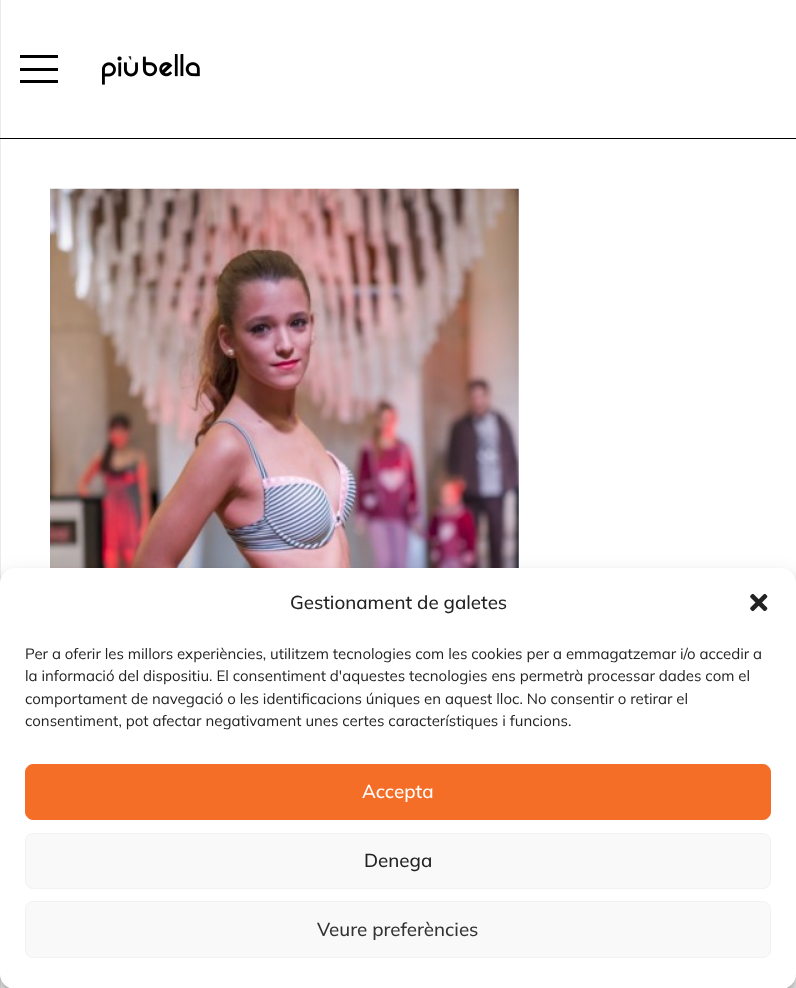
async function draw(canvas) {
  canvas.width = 796;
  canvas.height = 988;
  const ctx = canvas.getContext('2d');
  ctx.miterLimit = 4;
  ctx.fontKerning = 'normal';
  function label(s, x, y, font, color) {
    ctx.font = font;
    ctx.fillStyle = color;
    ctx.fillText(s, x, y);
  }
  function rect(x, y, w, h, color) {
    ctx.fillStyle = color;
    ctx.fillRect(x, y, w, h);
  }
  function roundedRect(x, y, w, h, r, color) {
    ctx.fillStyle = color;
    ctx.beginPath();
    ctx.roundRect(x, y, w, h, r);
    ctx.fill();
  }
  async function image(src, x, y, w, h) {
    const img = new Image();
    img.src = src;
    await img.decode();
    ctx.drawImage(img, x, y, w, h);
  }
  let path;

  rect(0, 0, 796, 988, '#fff');
  rect(0, 138, 796, 1, '#000');
  ctx.fillStyle = '#00000014';
  path = new Path2D('M-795 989H1V0H0V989Z');
  ctx.fill(path);
  rect(20, 68, 38, 3, '#000');
  rect(20, 55, 38, 3, '#000');
  rect(20, 80, 38, 3, '#000');
  await image('assets/img1.png', 102, 54, 98, 31);
  await image('assets/img2.png', 50, 188, 469, 380);
  ctx.fillStyle = '#0000003b';
  ctx.filter = 'blur(4px)';
  ctx.beginPath();
  ctx.roundRect(0, 575, 796, 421, 15);
  ctx.fill();
  ctx.filter = 'none';
  ctx.fillStyle = '#00000030';
  ctx.filter = 'blur(12.5px)';
  ctx.beginPath();
  ctx.roundRect(0, 580, 796, 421, 15);
  ctx.fill();
  ctx.filter = 'none';
  ctx.fillStyle = '#808080';
  ctx.filter = 'blur(3px)';
  ctx.beginPath();
  ctx.roundRect(709, 896, 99, 75, 2.5);
  ctx.fill();
  ctx.filter = 'none';
  roundedRect(0, 568, 796, 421, 15, '#fff');
  label('Gestionament de galetes', 290, 609, '500 18.75px Mulish', '#222');
  await image('assets/img3.png', 750, 593, 18, 19);
  label('Per a oferir les millors experiències, utilitzem tecnologies com les cookies per a emmagatzemar i/o accedir a', 25, 659, '15px Mulish', '#222');
  label('la informació del dispositiu. El consentiment d\'aquestes tecnologies ens permetrà processar dades com el', 25, 681, '15px Mulish', '#222');
  label('comportament de navegació o les identificacions úniques en aquest lloc. No consentir o retirar el', 25, 704, '15px Mulish', '#222');
  label('consentiment, pot afectar negativament unes certes característiques i funcions.', 25, 726, '15px Mulish', '#222');
  ctx.fillStyle = '#f56e28';
  ctx.beginPath();
  ctx.roundRect(25.5, 764.5, 745, 55, 7.5);
  ctx.fill();
  ctx.strokeStyle = '#f56e28';
  ctx.stroke();
  label('Accepta', 362, 798, '500 18.75px Mulish', '#fff');
  ctx.fillStyle = '#f9f9f9';
  ctx.beginPath();
  ctx.roundRect(25.5, 833.5, 745, 55, 7.5);
  ctx.fill();
  ctx.strokeStyle = '#f2f2f2';
  ctx.stroke();
  label('Denega', 364, 867, '500 18.75px Mulish', '#222');
  ctx.fillStyle = '#f9f9f9';
  ctx.beginPath();
  ctx.roundRect(25.5, 901.5, 745, 56, 7.5);
  ctx.fill();
  ctx.stroke();
  label('Veure preferències', 317, 936, '500 18.75px Mulish', '#333');
}

draw(document.querySelector('canvas'));
